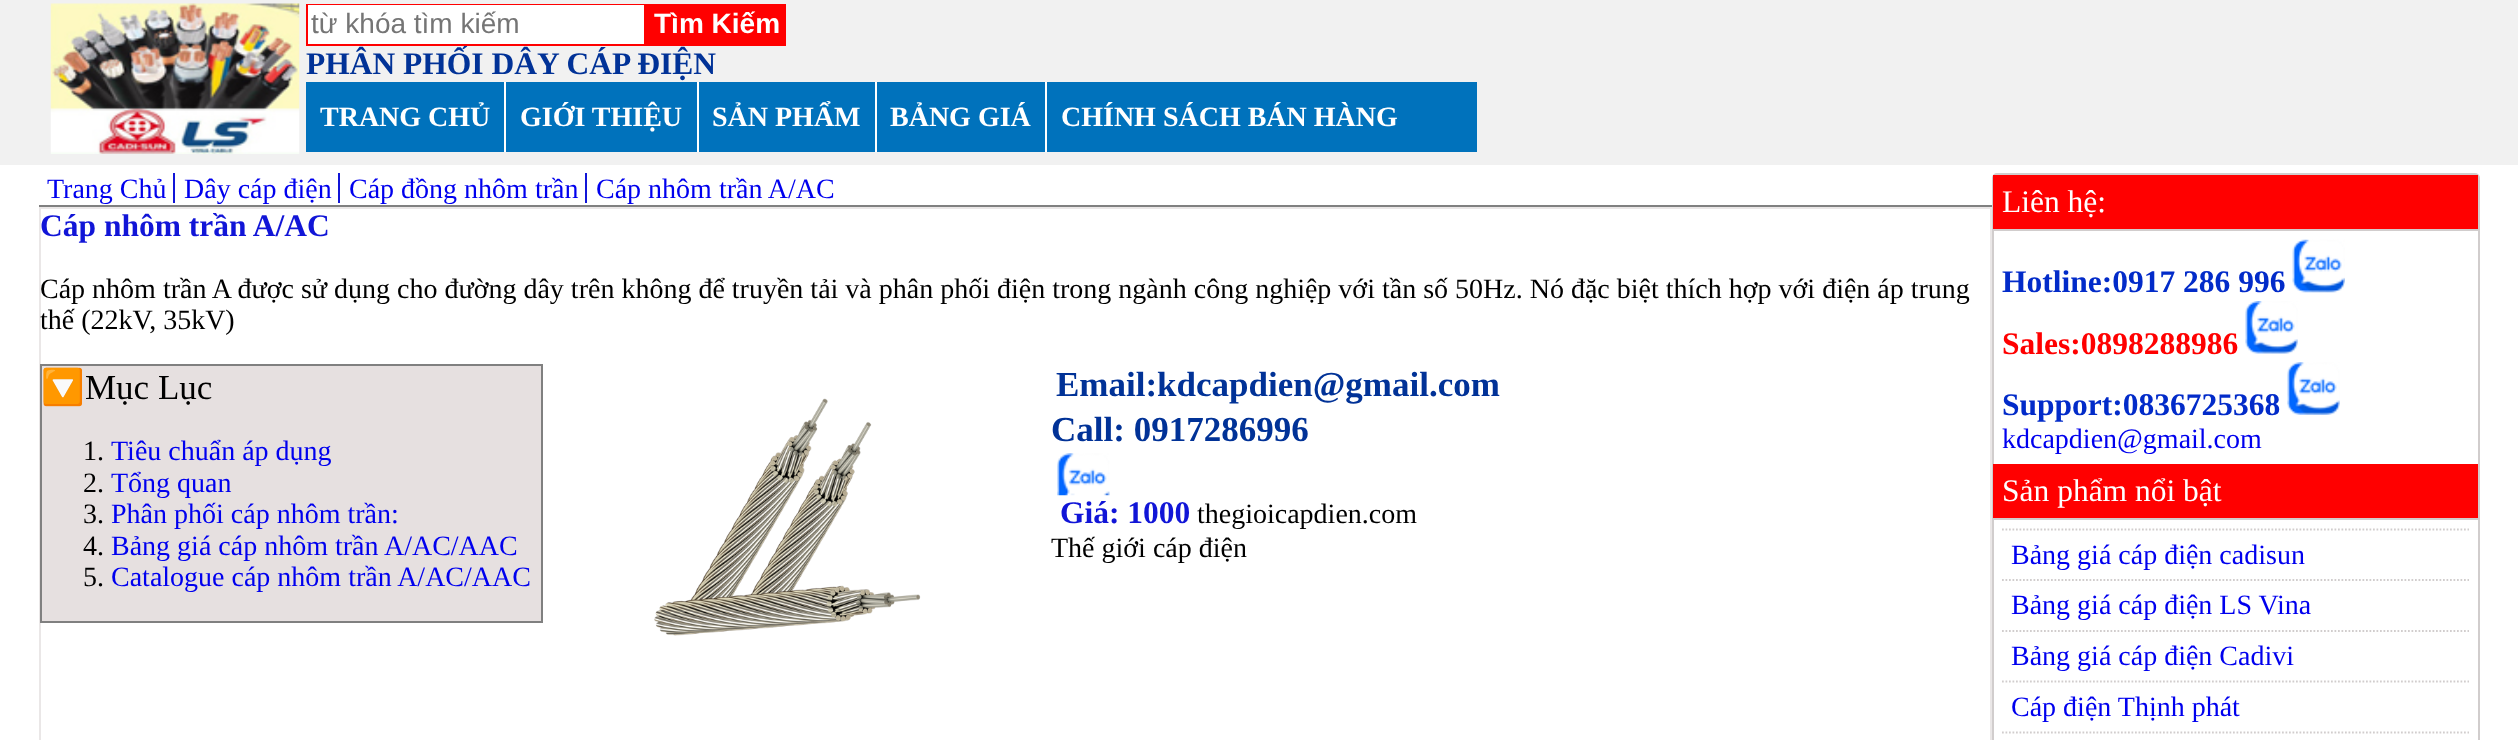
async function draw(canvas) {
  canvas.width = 2518;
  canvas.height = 740;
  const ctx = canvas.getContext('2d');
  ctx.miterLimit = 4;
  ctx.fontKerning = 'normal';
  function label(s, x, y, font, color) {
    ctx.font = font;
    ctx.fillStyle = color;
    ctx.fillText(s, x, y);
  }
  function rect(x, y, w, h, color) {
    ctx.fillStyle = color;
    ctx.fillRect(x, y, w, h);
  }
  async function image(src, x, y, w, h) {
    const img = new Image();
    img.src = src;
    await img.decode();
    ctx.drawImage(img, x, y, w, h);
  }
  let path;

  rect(0, 0, 2518, 740, '#fff');
  rect(0, 0, 2518, 165, '#f1f1f1');
  await image('assets/img1.png', 50, 3, 250, 151);
  rect(306, 4, 480, 42, '#f00');
  rect(308, 5, 336, 39, '#fff');
  label('từ khóa tìm kiếm', 311, 33, '28px Liberation Sans', '#757575');
  label('Tìm Kiếm', 654, 33, 'bold 28px Liberation Sans', '#fff');
  label('PHÂN PHỐI DÂY CÁP ĐIỆN', 306, 74, 'bold 31.5px Liberation Serif', '#013297');
  rect(306, 82, 1171, 70, '#0072bc');
  rect(504, 82, 2, 70, '#fff');
  label('TRANG CHỦ', 320, 126, 'bold 28px Liberation Serif', '#fff');
  rect(697, 82, 2, 70, '#fff');
  label('GIỚI THIỆU', 520, 126, 'bold 28px Liberation Serif', '#fff');
  rect(875, 82, 2, 70, '#fff');
  label('SẢN PHẨM', 712, 126, 'bold 28px Liberation Serif', '#fff');
  rect(1045, 82, 2, 70, '#fff');
  label('BẢNG GIÁ', 890, 126, 'bold 28px Liberation Serif', '#fff');
  label('CHÍNH SÁCH BÁN HÀNG', 1061, 126, 'bold 28px Liberation Serif', '#fff');
  rect(39, 205, 1953, 2, '#808080');
  label('Trang Chủ', 47, 198, '28px Liberation Serif', '#00e');
  rect(173, 173, 2, 30, '#1115d7');
  label('Dây cáp điện', 184, 198, '28px Liberation Serif', '#00e');
  rect(338, 173, 2, 30, '#1115d7');
  label('Cáp đồng nhôm trần', 349, 198, '28px Liberation Serif', '#00e');
  rect(585, 173, 2, 30, '#1115d7');
  label('Cáp nhôm trần A/AC', 596, 198, '28px Liberation Serif', '#00e');
  ctx.strokeStyle = '#eae7e7';
  ctx.lineWidth = 2;
  ctx.strokeRect(40, 208, 1951, 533);
  label('Cáp nhôm trần A/AC', 40, 236, 'bold 31.5px Liberation Serif', '#1115d7');
  label('Cáp nhôm trần A được sử dụng cho đường dây trên không để truyền tải và phân phối điện trong ngành công nghiệp với tần số 50Hz. Nó đặc biệt thích hợp với điện áp trung', 40, 298, '28px Liberation Serif', '#000');
  label('thế (22kV, 35kV)', 40, 329, '28px Liberation Serif', '#000');
  ctx.fillStyle = '#e6e0e0';
  ctx.beginPath();
  ctx.rect(41, 365, 501, 257);
  ctx.fill();
  ctx.strokeStyle = '#808080';
  ctx.stroke();
  label('🔽', 41, 399, '35px Noto Color Emoji', '#000');
  label('Mục Lục', 85, 399, '35px Liberation Serif', '#000');
  label('1.', 83, 460, '28px Liberation Serif', '#000');
  label('Tiêu chuẩn áp dụng', 111, 460, '28px Liberation Serif', '#00e');
  label('2.', 83, 492, '28px Liberation Serif', '#000');
  label('Tổng quan', 111, 492, '28px Liberation Serif', '#00e');
  label('3.', 83, 523, '28px Liberation Serif', '#000');
  label('Phân phối cáp nhôm trần:', 111, 523, '28px Liberation Serif', '#00e');
  label('4.', 83, 555, '28px Liberation Serif', '#000');
  label('Bảng giá cáp nhôm trần A/AC/AAC', 111, 555, '28px Liberation Serif', '#00e');
  label('5.', 83, 586, '28px Liberation Serif', '#000');
  label('Catalogue cáp nhôm trần A/AC/AAC', 111, 586, '28px Liberation Serif', '#00e');
  await image('assets/img2.png', 654, 398, 267, 238);
  label('Email:kdcapdien@gmail.com', 1056, 396, 'bold 35px Liberation Serif', '#013297');
  label('Call: 0917286996', 1051, 441, 'bold 35px Liberation Serif', '#013297');
  await image('assets/img3.png', 1057, 453, 53, 43);
  label('Giá: 1000', 1060, 523, 'bold 31.5px Liberation Serif', '#1115d7');
  label('thegioicapdien.com', 1197, 523, '28px Liberation Serif', '#000');
  label('Thế giới cáp điện', 1051, 557, '28px Liberation Serif', '#000');
  ctx.beginPath();
  ctx.roundRect(1993, 174, 486, 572, 4);
  ctx.strokeStyle = '#d1cdcd';
  ctx.stroke();
  rect(1993, 175, 485, 54, '#f00');
  rect(1993, 229, 485, 2, '#d1cdcd');
  label('Liên hệ:', 2002, 212, '31.5px Liberation Serif', '#fff');
  label('Hotline:0917 286 996', 2002, 292, 'bold 31.5px Liberation Serif', '#022bc9');
  await image('assets/img4.png', 2292, 239, 53, 54);
  label('Sales:0898288986', 2002, 354, 'bold 31.5px Liberation Serif', '#f00');
  await image('assets/img5.png', 2245, 301, 53, 53);
  label('Support:0836725368', 2002, 415, 'bold 31.5px Liberation Serif', '#022bc9');
  await image('assets/img6.png', 2287, 362, 53, 53);
  label('kdcapdien@gmail.com', 2002, 448, '28px Liberation Serif', '#00e');
  rect(1993, 464, 485, 54, '#f00');
  rect(1993, 518, 485, 2, '#d1cdcd');
  label('Sản phẩm nổi bật', 2002, 501, '31.5px Liberation Serif', '#fff');
  path = new Path2D('M2002 529.5H2469');
  ctx.lineWidth = 1.8;
  ctx.setLineDash([1.75, 1.75]);
  ctx.stroke(path);
  label('Bảng giá cáp điện cadisun', 2011, 564, '28px Liberation Serif', '#00e');
  path = new Path2D('M2002 580H2469');
  ctx.stroke(path);
  label('Bảng giá cáp điện LS Vina', 2011, 614, '28px Liberation Serif', '#00e');
  path = new Path2D('M2002 631H2469');
  ctx.stroke(path);
  label('Bảng giá cáp điện Cadivi', 2011, 665, '28px Liberation Serif', '#00e');
  path = new Path2D('M2002 681.5H2469');
  ctx.stroke(path);
  label('Cáp điện Thịnh phát', 2011, 716, '28px Liberation Serif', '#00e');
  path = new Path2D('M2002 732.5H2469');
  ctx.stroke(path);
}

draw(document.querySelector('canvas'));
